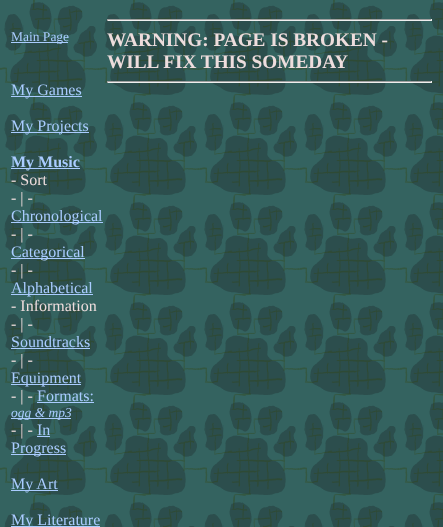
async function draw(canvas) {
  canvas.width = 443;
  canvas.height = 527;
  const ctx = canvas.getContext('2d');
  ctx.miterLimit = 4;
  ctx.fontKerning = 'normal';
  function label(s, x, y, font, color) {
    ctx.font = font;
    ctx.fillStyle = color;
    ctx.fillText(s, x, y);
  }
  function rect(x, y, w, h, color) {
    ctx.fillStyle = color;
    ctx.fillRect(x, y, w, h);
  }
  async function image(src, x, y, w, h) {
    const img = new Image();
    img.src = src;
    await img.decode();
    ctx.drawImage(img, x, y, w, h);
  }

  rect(0, 0, 443, 527, '#fff');
  await image('assets/img1.png', 0, 0, 443, 527);
  rect(11, 42, 57, 1, '#acf');
  label('Main Page', 11, 41, '13.5px Liberation Serif', '#acf');
  rect(11, 96, 71, 1, '#acf');
  label('My Games', 11, 95, '16px Liberation Serif', '#acf');
  rect(11, 132, 78, 1, '#acf');
  label('My Projects', 11, 131, '16px Liberation Serif', '#acf');
  rect(11, 168, 69, 1, '#acf');
  label('My Music', 11, 167, 'bold 16px Liberation Serif', '#acf');
  label('- Sort', 11, 185, '16px Liberation Serif', '#edd');
  label('- | -', 11, 203, '16px Liberation Serif', '#edd');
  rect(11, 222, 92, 1, '#acf');
  label('Chronological', 11, 221, '16px Liberation Serif', '#acf');
  label('- | -', 11, 239, '16px Liberation Serif', '#edd');
  rect(11, 258, 74, 1, '#acf');
  label('Categorical', 11, 257, '16px Liberation Serif', '#acf');
  label('- | -', 11, 275, '16px Liberation Serif', '#edd');
  rect(11, 294, 82, 1, '#acf');
  label('Alphabetical', 11, 293, '16px Liberation Serif', '#acf');
  label('- Information', 11, 311, '16px Liberation Serif', '#edd');
  label('- | -', 11, 329, '16px Liberation Serif', '#edd');
  label('Soundtracks', 11, 347, '16px Liberation Serif', '#acf');
  rect(11, 348, 79, 1, '#acf');
  label('- | -', 11, 365, '16px Liberation Serif', '#edd');
  rect(11, 384, 70, 1, '#acf');
  label('Equipment', 11, 383, '16px Liberation Serif', '#acf');
  label('- | -', 11, 401, '16px Liberation Serif', '#edd');
  label('Formats:', 37, 401, '16px Liberation Serif', '#acf');
  rect(37, 402, 57, 1, '#acf');
  rect(11, 418, 60, 1, '#acf');
  label('ogg & mp3', 11, 417, 'italic 13.5px Liberation Serif', '#acf');
  label('- | -', 11, 435, '16px Liberation Serif', '#edd');
  label('In', 37, 435, '16px Liberation Serif', '#acf');
  rect(37, 436, 13, 1, '#acf');
  rect(11, 454, 55, 1, '#acf');
  label('Progress', 11, 453, '16px Liberation Serif', '#acf');
  rect(11, 490, 47, 1, '#acf');
  label('My Art', 11, 489, '16px Liberation Serif', '#acf');
  rect(11, 526, 89, 1, '#acf');
  label('My Literature', 11, 525, '16px Liberation Serif', '#acf');
  rect(107, 19, 325, 1, '#9f9f9f');
  rect(431, 19, 1, 2, '#eee');
  rect(107, 20, 325, 1, '#eee');
  rect(107, 19, 1, 2, '#9f9f9f');
  label('WARNING: PAGE IS BROKEN -', 107, 46, 'bold 19.25px Liberation Serif', '#edd');
  label('WILL FIX THIS SOMEDAY', 107, 68, 'bold 19.25px Liberation Serif', '#edd');
  rect(107, 81, 325, 1, '#9f9f9f');
  rect(431, 81, 1, 2, '#eee');
  rect(107, 82, 325, 1, '#eee');
  rect(107, 81, 1, 2, '#9f9f9f');
}

draw(document.querySelector('canvas'));
